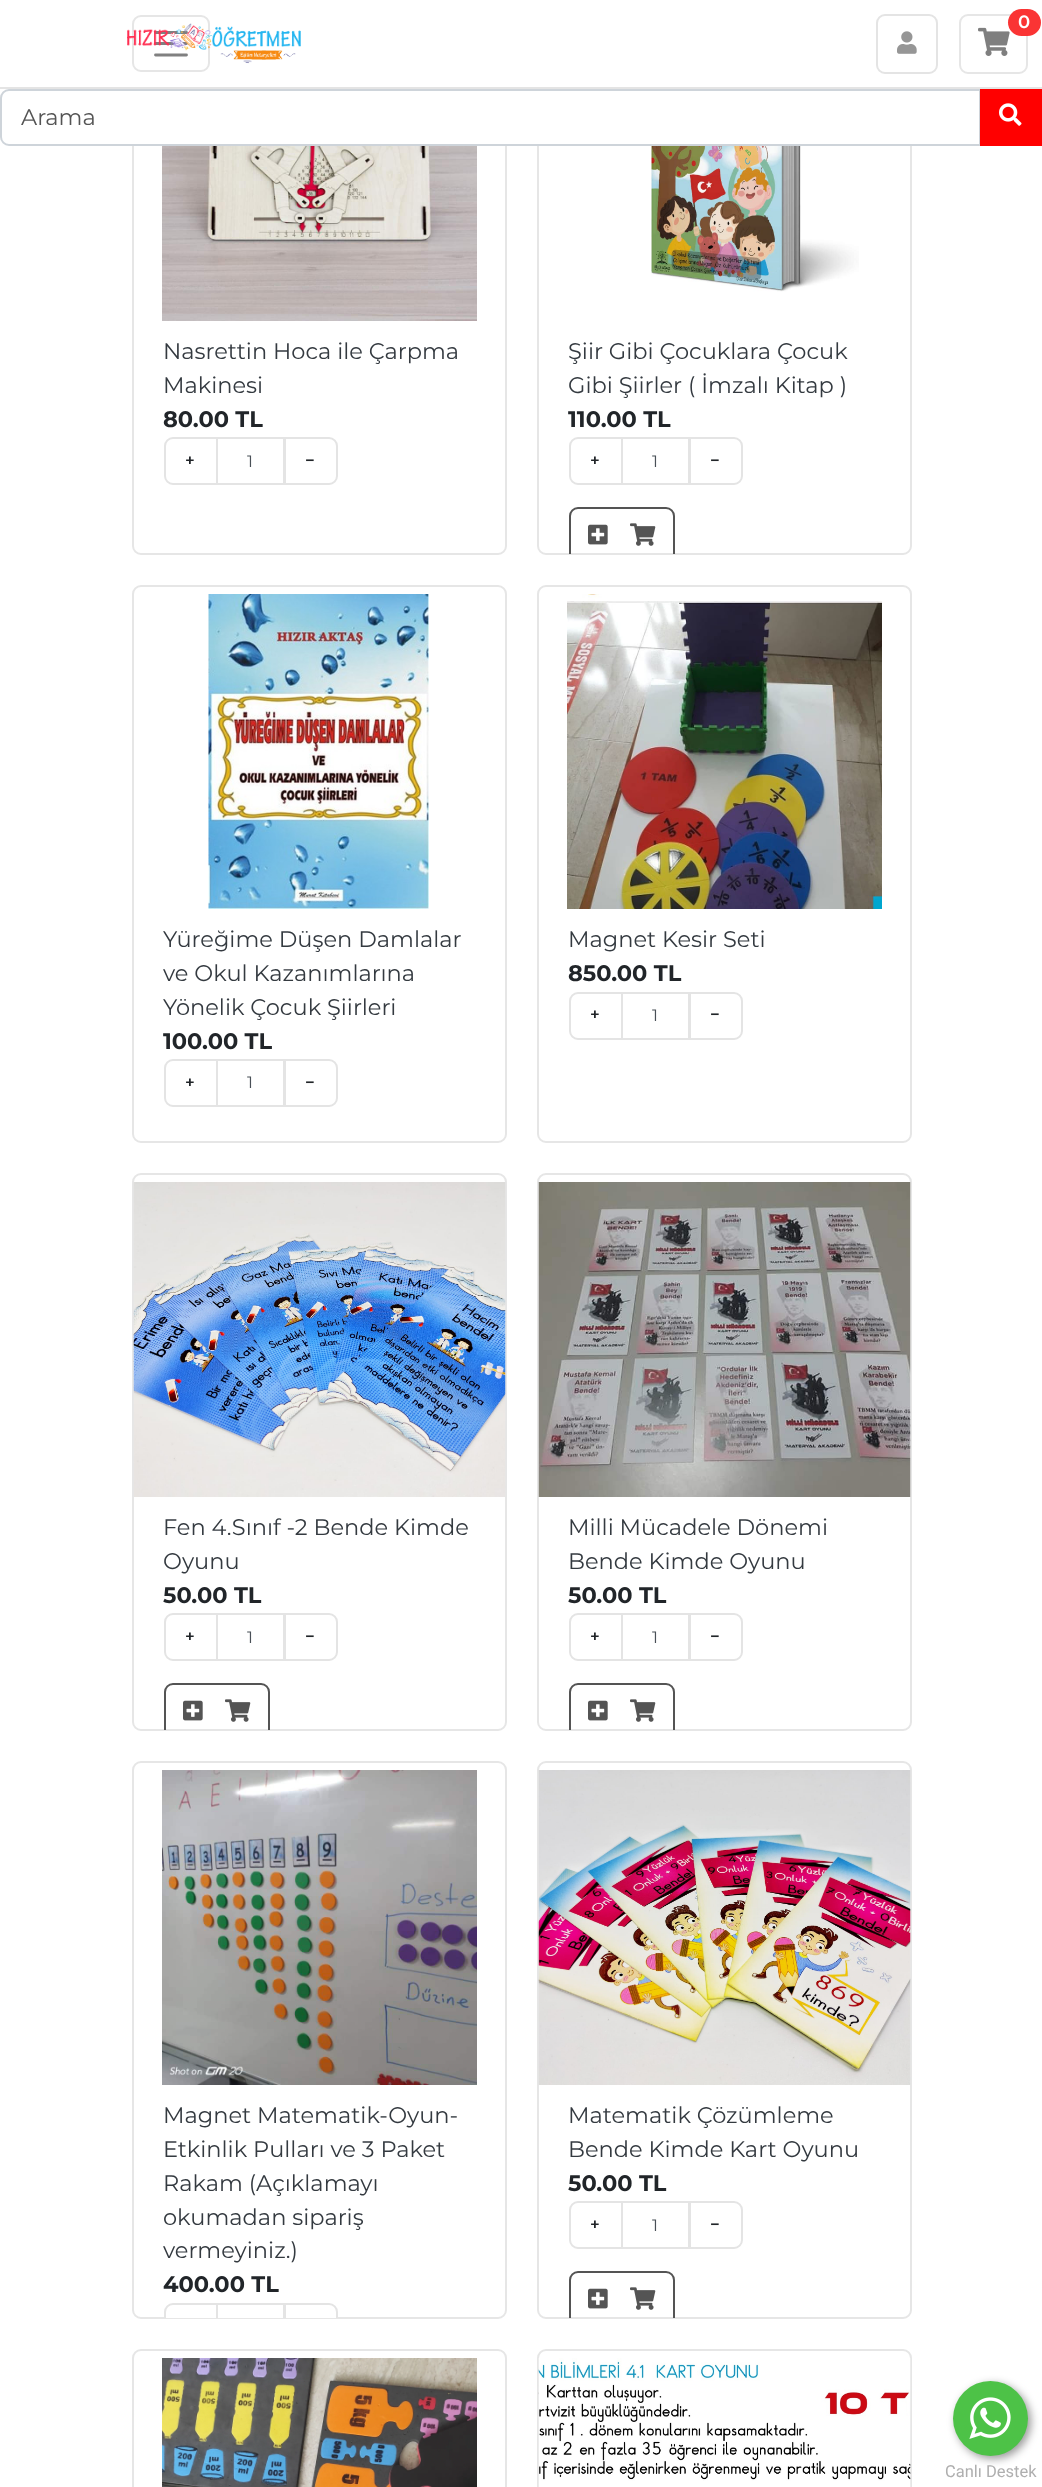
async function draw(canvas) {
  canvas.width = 1042;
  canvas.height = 2487;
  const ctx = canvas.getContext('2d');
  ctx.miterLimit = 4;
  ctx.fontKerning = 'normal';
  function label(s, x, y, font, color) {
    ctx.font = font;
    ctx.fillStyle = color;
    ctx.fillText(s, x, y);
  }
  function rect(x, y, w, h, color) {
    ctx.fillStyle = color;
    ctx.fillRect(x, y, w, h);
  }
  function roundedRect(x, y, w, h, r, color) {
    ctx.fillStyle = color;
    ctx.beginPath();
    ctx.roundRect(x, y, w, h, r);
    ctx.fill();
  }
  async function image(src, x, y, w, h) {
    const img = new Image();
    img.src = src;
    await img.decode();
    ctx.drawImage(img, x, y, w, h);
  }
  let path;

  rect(0, 0, 1042, 2487, '#fff');
  ctx.beginPath();
  ctx.roundRect(133, -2, 373, 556, 8);
  ctx.strokeStyle = '#e6e6e6';
  ctx.lineWidth = 2;
  ctx.stroke();
  ctx.beginPath();
  ctx.roundRect(538, -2, 373, 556, 8);
  ctx.stroke();
  rect(132, 0, 780, 146, '#fff');
  rect(0, 87, 1042, 2, '#e4e4e4');
  ctx.beginPath();
  ctx.roundRect(133, 16, 76, 55, 8);
  ctx.stroke();
  path = new Path2D('M155.5 32.5H186.5M155.5 43.5H186.5M155.5 55H186.5');
  ctx.strokeStyle = '#808080';
  ctx.lineWidth = 2.8;
  ctx.lineCap = 'round';
  ctx.stroke(path);
  ctx.beginPath();
  ctx.roundRect(877, 15, 60, 58, 8);
  ctx.strokeStyle = '#e4e4e4';
  ctx.lineWidth = 2;
  ctx.stroke();
  await image('assets/img1.png', 897, 31, 20, 23);
  ctx.beginPath();
  ctx.roundRect(960, 15, 67, 58, 8);
  ctx.strokeStyle = '#e6e6e6';
  ctx.stroke();
  await image('assets/img2.png', 978, 27, 32, 29);
  roundedRect(1008, 9, 33, 27, 13.5, '#fa3434');
  label('0', 1018, 28, '600 18px Montserrat', '#fff');
  await image('assets/img3.png', 127, 23, 174, 41);
  ctx.beginPath();
  ctx.roundRect(1, 90, 979, 55, [8, 0, 0, 8]);
  ctx.strokeStyle = '#ced4da';
  ctx.stroke();
  label('Arama', 21, 125, '22.5px Montserrat', '#545454');
  rect(980, 89, 62, 57, '#f00');
  await image('assets/img4.png', 999, 103, 23, 23);
  await image('assets/img5.png', 162, 146, 315, 175);
  label('Nasrettin Hoca ile Çarpma', 163, 359, '22.5px Montserrat', '#343a40');
  label('Makinesi', 163, 393, '22.5px Montserrat', '#343a40');
  label('80.00 TL', 163, 427, 'bold 22.5px Montserrat', '#212529');
  ctx.strokeStyle = '#e4e4e4';
  ctx.strokeRect(217, 438, 67, 46);
  ctx.fillStyle = '#fff';
  ctx.beginPath();
  ctx.roundRect(165, 438, 52, 46, [8, 0, 0, 8]);
  ctx.fill();
  ctx.stroke();
  label('+', 185, 466, '600 16.5px Montserrat', '#212529');
  label('1', 247, 467, '16.5px Montserrat', '#495057');
  ctx.fillStyle = '#fff';
  ctx.beginPath();
  ctx.roundRect(285, 438, 52, 46, [0, 8, 8, 0]);
  ctx.fill();
  ctx.stroke();
  label('−', 305, 466, '600 16.5px Montserrat', '#212529');
  await image('assets/img6.png', 651, 146, 208, 146);
  label('Şiir Gibi Çocuklara Çocuk', 568, 359, '22.5px Montserrat', '#343a40');
  label('Gibi Şiirler ( İmzalı Kitap )', 568, 393, '22.5px Montserrat', '#343a40');
  label('110.00 TL', 568, 427, 'bold 22.5px Montserrat', '#212529');
  ctx.strokeRect(622, 438, 67, 46);
  ctx.fillStyle = '#fff';
  ctx.beginPath();
  ctx.roundRect(570, 438, 52, 46, [8, 0, 0, 8]);
  ctx.fill();
  ctx.stroke();
  label('+', 590, 466, '600 16.5px Montserrat', '#212529');
  label('1', 652, 467, '16.5px Montserrat', '#495057');
  ctx.fillStyle = '#fff';
  ctx.beginPath();
  ctx.roundRect(690, 438, 52, 46, [0, 8, 8, 0]);
  ctx.fill();
  ctx.stroke();
  label('−', 710, 466, '600 16.5px Montserrat', '#212529');
  ctx.save();
  ctx.beginPath();
  ctx.rect(539, 329, 372, 225);
  ctx.clip();
  ctx.beginPath();
  ctx.roundRect(570, 508, 104, 55, 8);
  ctx.strokeStyle = '#545454';
  ctx.stroke();
  ctx.restore();
  await image('assets/img7.png', 588, 524, 20, 21);
  await image('assets/img8.png', 630, 523, 26, 23);
  ctx.beginPath();
  ctx.roundRect(133, 586, 373, 556, 8);
  ctx.strokeStyle = '#e6e6e6';
  ctx.stroke();
  await image('assets/img9.png', 208, 594, 221, 315);
  label('Yüreğime Düşen Damlalar', 163, 947, '22.5px Montserrat', '#343a40');
  label('ve Okul Kazanımlarına', 163, 981, '22.5px Montserrat', '#343a40');
  label('Yönelik Çocuk Şiirleri', 163, 1015, '22.5px Montserrat', '#343a40');
  label('100.00 TL', 163, 1049, 'bold 22.5px Montserrat', '#212529');
  ctx.strokeStyle = '#e4e4e4';
  ctx.strokeRect(217, 1060, 67, 46);
  ctx.fillStyle = '#fff';
  ctx.beginPath();
  ctx.roundRect(165, 1060, 52, 46, [8, 0, 0, 8]);
  ctx.fill();
  ctx.stroke();
  label('+', 185, 1088, '600 16.5px Montserrat', '#212529');
  label('1', 247, 1088, '16.5px Montserrat', '#495057');
  ctx.fillStyle = '#fff';
  ctx.beginPath();
  ctx.roundRect(285, 1060, 52, 46, [0, 8, 8, 0]);
  ctx.fill();
  ctx.stroke();
  label('−', 305, 1088, '600 16.5px Montserrat', '#212529');
  ctx.beginPath();
  ctx.roundRect(538, 586, 373, 556, 8);
  ctx.strokeStyle = '#e6e6e6';
  ctx.stroke();
  await image('assets/img10.png', 567, 594, 315, 315);
  label('Magnet Kesir Seti', 568, 947, '22.5px Montserrat', '#343a40');
  label('850.00 TL', 568, 981, 'bold 22.5px Montserrat', '#212529');
  ctx.strokeStyle = '#e4e4e4';
  ctx.strokeRect(622, 993, 67, 46);
  ctx.fillStyle = '#fff';
  ctx.beginPath();
  ctx.roundRect(570, 993, 52, 46, [8, 0, 0, 8]);
  ctx.fill();
  ctx.stroke();
  label('+', 590, 1020, '600 16.5px Montserrat', '#212529');
  label('1', 652, 1021, '16.5px Montserrat', '#495057');
  ctx.fillStyle = '#fff';
  ctx.beginPath();
  ctx.roundRect(690, 993, 52, 46, [0, 8, 8, 0]);
  ctx.fill();
  ctx.stroke();
  label('−', 710, 1020, '600 16.5px Montserrat', '#212529');
  ctx.beginPath();
  ctx.roundRect(133, 1174, 373, 556, 8);
  ctx.strokeStyle = '#e6e6e6';
  ctx.stroke();
  await image('assets/img11.png', 133, 1182, 373, 315);
  label('Fen 4.Sınıf -2 Bende Kimde', 163, 1535, '22.5px Montserrat', '#343a40');
  label('Oyunu', 163, 1569, '22.5px Montserrat', '#343a40');
  label('50.00 TL', 163, 1603, 'bold 22.5px Montserrat', '#212529');
  ctx.strokeStyle = '#e4e4e4';
  ctx.strokeRect(217, 1614, 67, 46);
  ctx.fillStyle = '#fff';
  ctx.beginPath();
  ctx.roundRect(165, 1614, 52, 46, [8, 0, 0, 8]);
  ctx.fill();
  ctx.stroke();
  label('+', 185, 1642, '600 16.5px Montserrat', '#212529');
  label('1', 247, 1643, '16.5px Montserrat', '#495057');
  ctx.fillStyle = '#fff';
  ctx.beginPath();
  ctx.roundRect(285, 1614, 52, 46, [0, 8, 8, 0]);
  ctx.fill();
  ctx.stroke();
  label('−', 305, 1642, '600 16.5px Montserrat', '#212529');
  ctx.save();
  ctx.beginPath();
  ctx.rect(134, 1505, 372, 225);
  ctx.clip();
  ctx.beginPath();
  ctx.roundRect(165, 1684, 104, 55, 8);
  ctx.strokeStyle = '#545454';
  ctx.stroke();
  ctx.restore();
  await image('assets/img7.png', 183, 1700, 20, 21);
  await image('assets/img8.png', 225, 1699, 26, 23);
  ctx.beginPath();
  ctx.roundRect(538, 1174, 373, 556, 8);
  ctx.strokeStyle = '#e6e6e6';
  ctx.stroke();
  await image('assets/img12.png', 538, 1182, 373, 315);
  label('Milli Mücadele Dönemi', 568, 1535, '22.5px Montserrat', '#343a40');
  label('Bende Kimde Oyunu', 568, 1569, '22.5px Montserrat', '#343a40');
  label('50.00 TL', 568, 1603, 'bold 22.5px Montserrat', '#212529');
  ctx.strokeStyle = '#e4e4e4';
  ctx.strokeRect(622, 1614, 67, 46);
  ctx.fillStyle = '#fff';
  ctx.beginPath();
  ctx.roundRect(570, 1614, 52, 46, [8, 0, 0, 8]);
  ctx.fill();
  ctx.stroke();
  label('+', 590, 1642, '600 16.5px Montserrat', '#212529');
  label('1', 652, 1643, '16.5px Montserrat', '#495057');
  ctx.fillStyle = '#fff';
  ctx.beginPath();
  ctx.roundRect(690, 1614, 52, 46, [0, 8, 8, 0]);
  ctx.fill();
  ctx.stroke();
  label('−', 710, 1642, '600 16.5px Montserrat', '#212529');
  ctx.save();
  ctx.beginPath();
  ctx.rect(539, 1505, 372, 225);
  ctx.clip();
  ctx.beginPath();
  ctx.roundRect(570, 1684, 104, 55, 8);
  ctx.strokeStyle = '#545454';
  ctx.stroke();
  ctx.restore();
  await image('assets/img7.png', 588, 1700, 20, 21);
  await image('assets/img8.png', 630, 1699, 26, 23);
  ctx.beginPath();
  ctx.roundRect(133, 1762, 373, 556, 8);
  ctx.strokeStyle = '#e6e6e6';
  ctx.stroke();
  await image('assets/img13.png', 162, 1770, 315, 315);
  label('Magnet Matematik-Oyun-', 163, 2123, '22.5px Montserrat', '#343a40');
  label('Etkinlik Pulları ve 3 Paket', 163, 2157, '22.5px Montserrat', '#343a40');
  label('Rakam (Açıklamayı', 163, 2191, '22.5px Montserrat', '#343a40');
  label('okumadan sipariş', 163, 2225, '22.5px Montserrat', '#343a40');
  label('vermeyiniz.)', 163, 2258, '22.5px Montserrat', '#343a40');
  label('400.00 TL', 163, 2292, 'bold 22.5px Montserrat', '#212529');
  rect(218, 2317, 65, 1, '#fff');
  ctx.save();
  ctx.beginPath();
  ctx.rect(134, 2093, 372, 225);
  ctx.clip();
  ctx.strokeStyle = '#e4e4e4';
  ctx.strokeRect(217, 2304, 67, 46);
  ctx.restore();
  ctx.beginPath();
  ctx.roundRect(164, 2303, 54, 15, [9, 0, 0, 0]);
  ctx.fill();
  ctx.beginPath();
  ctx.roundRect(133, 2350, 373, 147, 8);
  ctx.stroke();
  ctx.save();
  ctx.beginPath();
  ctx.rect(134, 2093, 372, 225);
  ctx.clip();
  ctx.beginPath();
  ctx.roundRect(165, 2304, 52, 46, [8, 0, 0, 8]);
  ctx.strokeStyle = '#e4e4e4';
  ctx.stroke();
  ctx.restore();
  ctx.beginPath();
  ctx.roundRect(284, 2303, 54, 15, [0, 9, 0, 0]);
  ctx.fill();
  ctx.save();
  ctx.beginPath();
  ctx.rect(134, 2093, 372, 225);
  ctx.clip();
  ctx.beginPath();
  ctx.roundRect(285, 2304, 52, 46, [0, 8, 8, 0]);
  ctx.strokeStyle = '#e4e4e4';
  ctx.stroke();
  ctx.restore();
  ctx.beginPath();
  ctx.roundRect(538, 1762, 373, 556, 8);
  ctx.stroke();
  await image('assets/img14.png', 538, 1770, 373, 315);
  label('Matematik Çözümleme', 568, 2123, '22.5px Montserrat', '#343a40');
  label('Bende Kimde Kart Oyunu', 568, 2157, '22.5px Montserrat', '#343a40');
  label('50.00 TL', 568, 2191, 'bold 22.5px Montserrat', '#212529');
  ctx.strokeStyle = '#e4e4e4';
  ctx.strokeRect(622, 2202, 67, 46);
  ctx.fillStyle = '#fff';
  ctx.beginPath();
  ctx.roundRect(570, 2202, 52, 46, [8, 0, 0, 8]);
  ctx.fill();
  ctx.stroke();
  label('+', 590, 2230, '600 16.5px Montserrat', '#212529');
  label('1', 652, 2231, '16.5px Montserrat', '#495057');
  ctx.fillStyle = '#fff';
  ctx.beginPath();
  ctx.roundRect(690, 2202, 52, 46, [0, 8, 8, 0]);
  ctx.fill();
  ctx.stroke();
  label('−', 710, 2230, '600 16.5px Montserrat', '#212529');
  ctx.save();
  ctx.beginPath();
  ctx.rect(539, 2093, 372, 225);
  ctx.clip();
  ctx.beginPath();
  ctx.roundRect(570, 2272, 104, 55, 8);
  ctx.strokeStyle = '#545454';
  ctx.stroke();
  ctx.restore();
  await image('assets/img7.png', 588, 2288, 20, 21);
  await image('assets/img8.png', 630, 2287, 26, 23);
  await image('assets/img15.png', 162, 2358, 315, 129);
  ctx.beginPath();
  ctx.roundRect(538, 2350, 373, 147, 8);
  ctx.strokeStyle = '#e6e6e6';
  ctx.stroke();
  await image('assets/img16.png', 538, 2358, 373, 129);
  ctx.fillStyle = '#00000066';
  ctx.filter = 'blur(4.5px)';
  ctx.beginPath();
  ctx.roundRect(956, 2384, 75, 75, 37.5);
  ctx.fill();
  ctx.filter = 'none';
  ctx.fillStyle = '#4dc247';
  ctx.beginPath();
  ctx.arc(990.5, 2418.5, 37.5, 0, 2 * Math.PI);
  ctx.fill();
  await image('assets/img17.png', 969, 2397, 42, 42);
  label('Canlı Destek', 945, 2477, '16.5px Roboto', '#afafaf');
}

draw(document.querySelector('canvas'));
